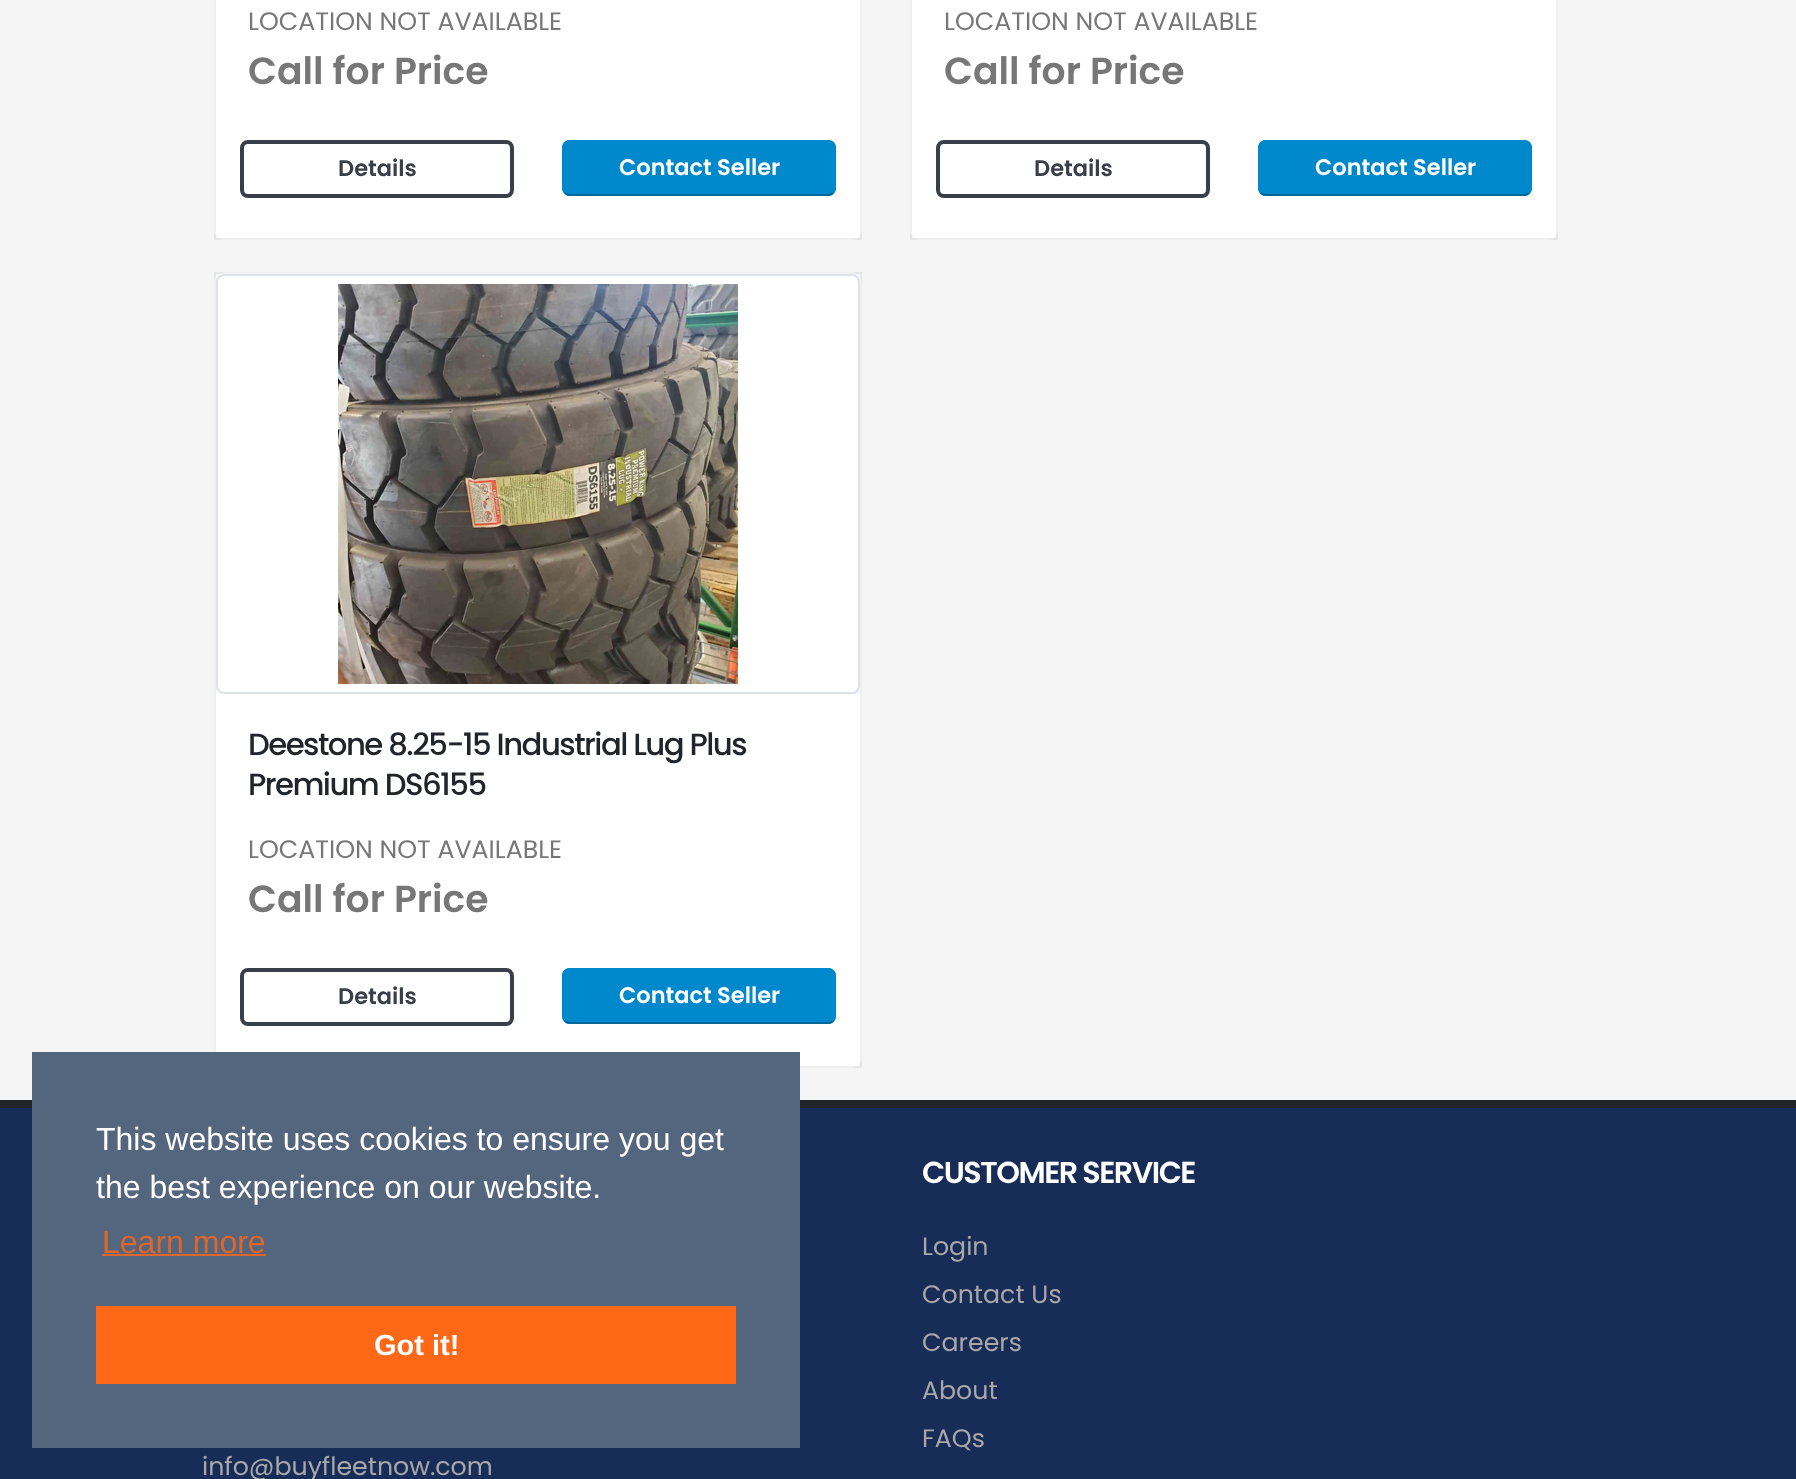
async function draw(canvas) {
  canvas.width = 1796;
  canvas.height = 1479;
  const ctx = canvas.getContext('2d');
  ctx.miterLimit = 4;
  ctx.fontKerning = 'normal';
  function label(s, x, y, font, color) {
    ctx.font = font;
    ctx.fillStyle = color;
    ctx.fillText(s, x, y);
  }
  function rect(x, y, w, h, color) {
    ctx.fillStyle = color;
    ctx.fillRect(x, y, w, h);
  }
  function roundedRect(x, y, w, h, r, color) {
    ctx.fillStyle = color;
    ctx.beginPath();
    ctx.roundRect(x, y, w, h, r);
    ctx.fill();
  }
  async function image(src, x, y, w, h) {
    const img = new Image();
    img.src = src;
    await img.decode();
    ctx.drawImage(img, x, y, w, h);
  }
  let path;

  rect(0, 0, 1796, 1479, '#f5f5f5');
  roundedRect(214, -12, 648, 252, 12, '#fff');
  ctx.strokeStyle = '#0000000f';
  ctx.lineWidth = 2;
  ctx.strokeRect(215, -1, 646, 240);
  label('LOCATION NOT AVAILABLE', 248, 30, '25.25px Poppins', '#777');
  label('Call for Price', 248, 84, '600 37.75px Poppins', '#777');
  ctx.beginPath();
  ctx.roundRect(242, 142, 270, 54, 6);
  ctx.strokeStyle = '#383f48';
  ctx.lineWidth = 4;
  ctx.stroke();
  label('Details', 338, 176, '600 22.5px Poppins', '#383f48');
  roundedRect(562, 140, 274, 56, 8, '#08c');
  path = new Path2D('M833 193C831.5 194.5 830 195 828 195H570C568 195 566.5 194.5 565 193');
  ctx.strokeStyle = '#069';
  ctx.lineWidth = 2;
  ctx.stroke(path);
  path = new Path2D('M565 193C563.5 191.5 563 190 563 188V148C563 146 563.5 144.5 565 143C566.5 141.5 568 141 570 141H828C830 141 831.5 141.5 833 143C834.5 144.5 835 146 835 148V188C835 190 834.5 191.5 833 193');
  ctx.strokeStyle = '#08c';
  ctx.stroke(path);
  label('Contact Seller', 619, 175, '600 22.5px Poppins', '#fff');
  roundedRect(910, -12, 648, 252, 12, '#fff');
  ctx.strokeStyle = '#0000000f';
  ctx.strokeRect(911, -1, 646, 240);
  label('LOCATION NOT AVAILABLE', 944, 30, '25.25px Poppins', '#777');
  label('Call for Price', 944, 84, '600 37.75px Poppins', '#777');
  ctx.beginPath();
  ctx.roundRect(938, 142, 270, 54, 6);
  ctx.strokeStyle = '#383f48';
  ctx.lineWidth = 4;
  ctx.stroke();
  label('Details', 1034, 176, '600 22.5px Poppins', '#383f48');
  roundedRect(1258, 140, 274, 56, 8, '#08c');
  path = new Path2D('M1529 193C1527.5 194.5 1526 195 1524 195H1266C1264 195 1262.5 194.5 1261 193');
  ctx.strokeStyle = '#069';
  ctx.lineWidth = 2;
  ctx.stroke(path);
  path = new Path2D('M1261 193C1259.5 191.5 1259 190 1259 188V148C1259 146 1259.5 144.5 1261 143C1262.5 141.5 1264 141 1266 141H1524C1526 141 1527.5 141.5 1529 143C1530.5 144.5 1531 146 1531 148V188C1531 190 1530.5 191.5 1529 193');
  ctx.strokeStyle = '#08c';
  ctx.stroke(path);
  label('Contact Seller', 1315, 175, '600 22.5px Poppins', '#fff');
  roundedRect(214, 272, 648, 796, 12, '#fff');
  ctx.strokeStyle = '#0000000f';
  ctx.strokeRect(215, 273, 646, 794);
  rect(216, 274, 644, 420, '#f7f9fc');
  ctx.fillStyle = '#fff';
  ctx.beginPath();
  ctx.roundRect(217, 275, 642, 418, 7);
  ctx.fill();
  ctx.strokeStyle = '#dee2e6';
  ctx.stroke();
  await image('assets/img1.png', 338, 284, 400, 400);
  ctx.letterSpacing = '-1.55px';
  label('Deestone 8.25-15 Industrial Lug Plus', 248, 755, '500 30.75px Poppins', '#212529');
  label('Premium DS6155', 248, 795, '500 30.75px Poppins', '#212529');
  ctx.letterSpacing = '0px';
  label('LOCATION NOT AVAILABLE', 248, 858, '25.25px Poppins', '#777');
  label('Call for Price', 248, 912, '600 37.75px Poppins', '#777');
  ctx.beginPath();
  ctx.roundRect(242, 970, 270, 54, 6);
  ctx.strokeStyle = '#383f48';
  ctx.lineWidth = 4;
  ctx.stroke();
  label('Details', 338, 1004, '600 22.5px Poppins', '#383f48');
  roundedRect(562, 968, 274, 56, 8, '#08c');
  path = new Path2D('M833 1021C831.5 1022.5 830 1023 828 1023H570C568 1023 566.5 1022.5 565 1021');
  ctx.strokeStyle = '#069';
  ctx.lineWidth = 2;
  ctx.stroke(path);
  path = new Path2D('M565 1021C563.5 1019.5 563 1018 563 1016V976C563 974 563.5 972.5 565 971C566.5 969.5 568 969 570 969H828C830 969 831.5 969.5 833 971C834.5 972.5 835 974 835 976V1016C835 1018 834.5 1019.5 833 1021');
  ctx.strokeStyle = '#08c';
  ctx.stroke(path);
  label('Contact Seller', 619, 1003, '600 22.5px Poppins', '#fff');
  rect(0, 1108, 1796, 371, '#172c56');
  rect(0, 1100, 1796, 8, '#212529');
  rect(32, 1052, 768, 396, '#54657e');
  label('This website uses cookies to ensure you get', 96, 1150, '32px Liberation Sans', '#fff');
  label('the best experience on our website.', 96, 1198, '32px Liberation Sans', '#fff');
  label('Learn more', 102, 1253, '32px Liberation Sans', '#dd672b');
  rect(102, 1254, 164, 2, '#dd672b');
  rect(96, 1306, 640, 78, '#ff6816');
  label('Got it!', 374, 1355, 'bold 29px Liberation Sans', '#fff');
  ctx.letterSpacing = '-1.5px';
  label('CUSTOMER SERVICE', 922, 1183, '600 30.25px Poppins', '#fff');
  ctx.letterSpacing = '0px';
  label('Login', 922, 1255, '25.25px Poppins', '#a8a8a8');
  label('Contact Us', 922, 1303, '25.25px Poppins', '#a8a8a8');
  label('Careers', 922, 1351, '25.25px Poppins', '#a8a8a8');
  label('About', 922, 1399, '25.25px Poppins', '#a8a8a8');
  label('FAQs', 922, 1447, '25.25px Poppins', '#a8a8a8');
  label('info@buyfleetnow.com', 202, 1475, '25.25px Poppins', '#a8a8a8');
}

draw(document.querySelector('canvas'));
